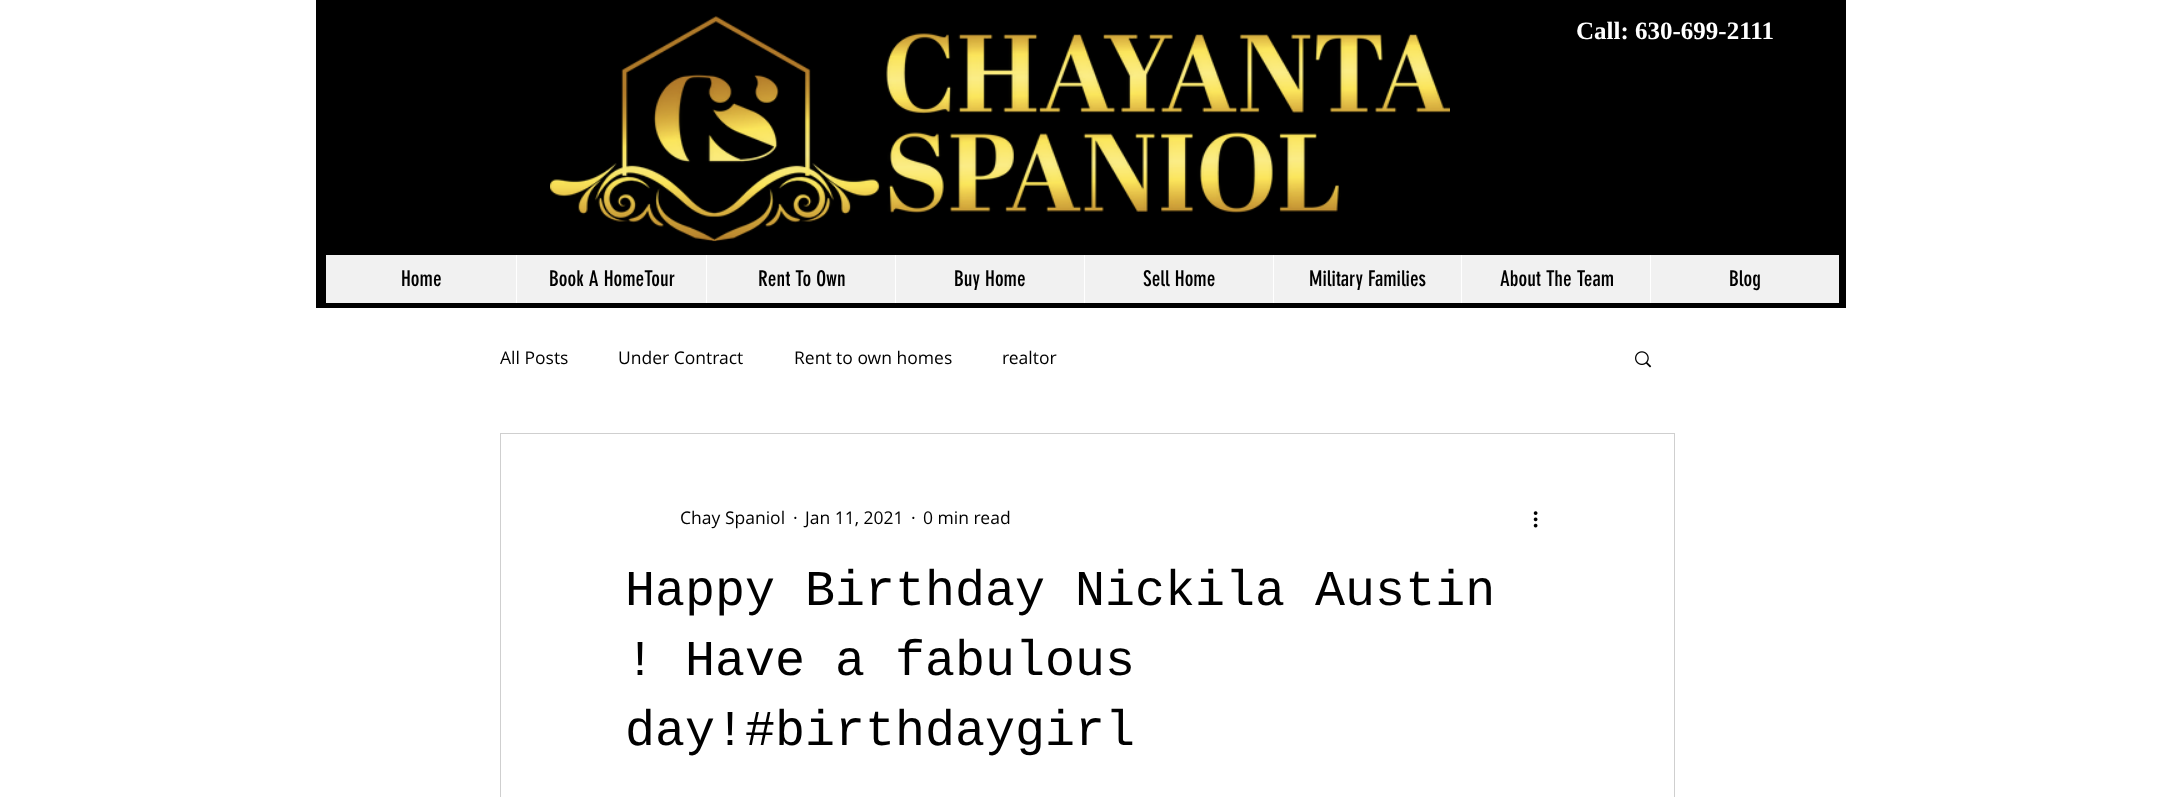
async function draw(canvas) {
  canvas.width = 2174;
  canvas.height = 797;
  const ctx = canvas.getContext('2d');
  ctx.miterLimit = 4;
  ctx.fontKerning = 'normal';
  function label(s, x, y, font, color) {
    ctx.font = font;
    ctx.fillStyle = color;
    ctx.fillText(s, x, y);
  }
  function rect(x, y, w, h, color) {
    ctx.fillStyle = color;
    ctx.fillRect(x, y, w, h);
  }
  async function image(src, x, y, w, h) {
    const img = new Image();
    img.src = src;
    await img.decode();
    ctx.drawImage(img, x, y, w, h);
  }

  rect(0, 0, 2174, 797, '#fff');
  rect(316, 0, 1530, 308, '#000');
  await image('assets/img1.png', 550, 16, 900, 226);
  label('Call: 630-699-2111', 1576, 39, 'bold 25px Liberation Serif', '#fff');
  rect(326, 255, 1513, 48, '#f1f1f1');
  label('Home', 401, 286, '21.25px "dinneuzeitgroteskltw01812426"', '#000');
  rect(516, 255, 1, 48, '#fff');
  label('Book A HomeTour', 549, 286, '21.25px "dinneuzeitgroteskltw01812426"', '#000');
  rect(706, 255, 1, 48, '#fff');
  label('Rent To Own', 758, 286, '21.25px "dinneuzeitgroteskltw01812426"', '#000');
  rect(895, 255, 1, 48, '#fff');
  label('Buy Home', 954, 286, '21.25px "dinneuzeitgroteskltw01812426"', '#000');
  rect(1084, 255, 1, 48, '#fff');
  label('Sell Home', 1143, 286, '21.25px "dinneuzeitgroteskltw01812426"', '#000');
  rect(1273, 255, 1, 48, '#fff');
  label('Military Families', 1309, 286, '21.25px "dinneuzeitgroteskltw01812426"', '#000');
  rect(1461, 255, 1, 48, '#fff');
  label('About The Team', 1500, 286, '21.25px "dinneuzeitgroteskltw01812426"', '#000');
  rect(1650, 255, 1, 48, '#fff');
  label('Blog', 1729, 286, '21.25px "dinneuzeitgroteskltw01812426"', '#000');
  label('All Posts', 500, 364, '17.5px Open Sans', '#000');
  label('Under Contract', 618, 364, '17.5px Open Sans', '#000');
  label('Rent to own homes', 794, 364, '17.5px Open Sans', '#000');
  label('realtor', 1002, 364, '17.5px Open Sans', '#000');
  await image('assets/img2.png', 1635, 351, 17, 17);
  ctx.strokeStyle = '#cfcfcf';
  ctx.strokeRect(500.5, 433.5, 1174, 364);
  label('Chay Spaniol', 680, 524, '17.5px Open Sans', '#000');
  label('·', 793, 524, '17.5px Open Sans', '#000');
  label('Jan 11, 2021', 805, 524, '17.5px Open Sans', '#000');
  label('·', 911, 524, '17.5px Open Sans', '#000');
  label('0 min read', 923, 524, '17.5px Open Sans', '#000');
  await image('assets/img3.png', 1533, 511, 5, 17);
  label('Happy Birthday Nickila Austin', 625, 605, '50px Liberation Mono', '#000');
  label('! Have a fabulous', 625, 675, '50px Liberation Mono', '#000');
  label('day!#birthdaygirl', 625, 745, '50px Liberation Mono', '#000');
}

draw(document.querySelector('canvas'));
